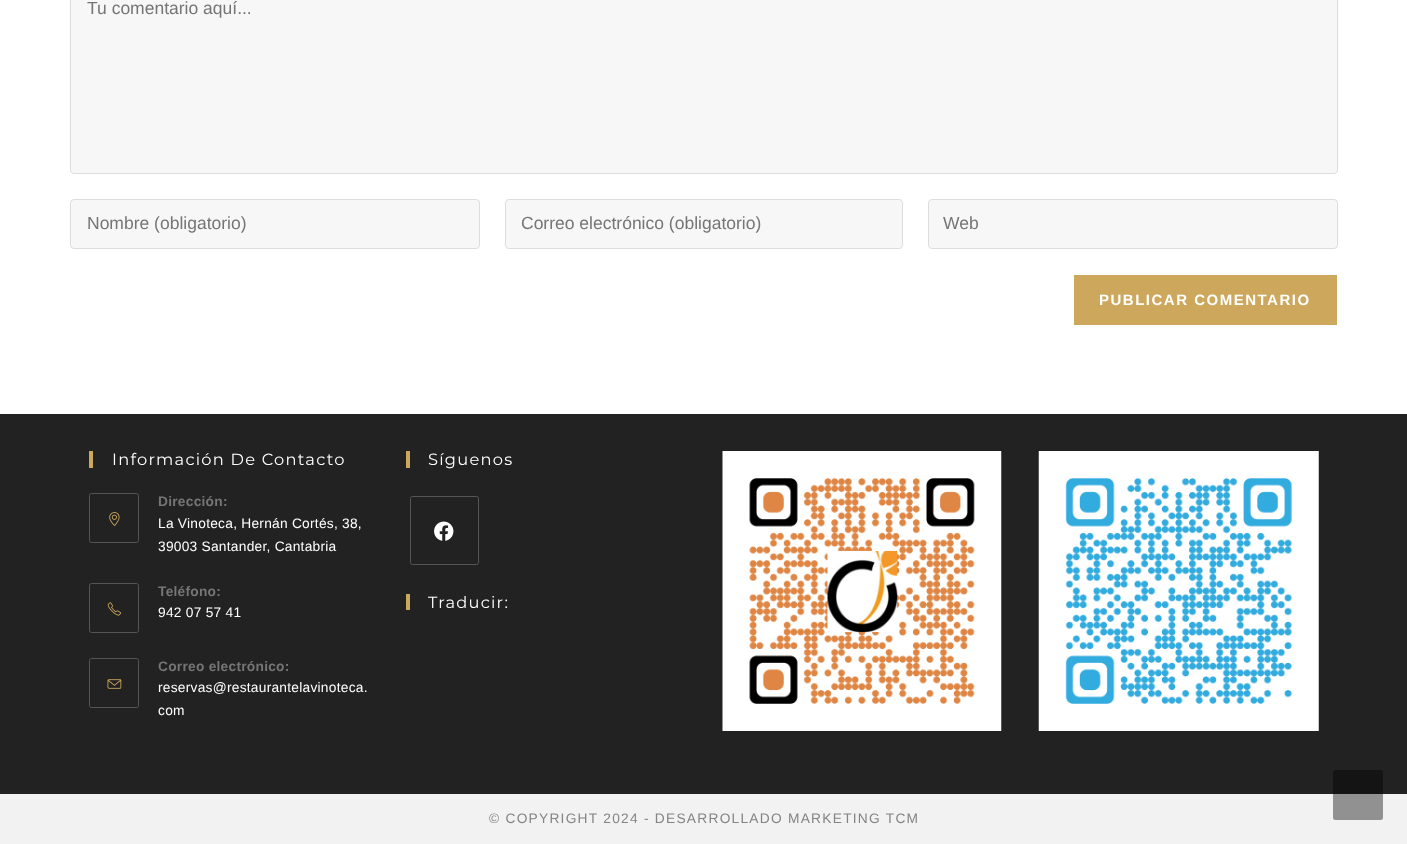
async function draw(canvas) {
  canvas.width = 1407;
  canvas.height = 844;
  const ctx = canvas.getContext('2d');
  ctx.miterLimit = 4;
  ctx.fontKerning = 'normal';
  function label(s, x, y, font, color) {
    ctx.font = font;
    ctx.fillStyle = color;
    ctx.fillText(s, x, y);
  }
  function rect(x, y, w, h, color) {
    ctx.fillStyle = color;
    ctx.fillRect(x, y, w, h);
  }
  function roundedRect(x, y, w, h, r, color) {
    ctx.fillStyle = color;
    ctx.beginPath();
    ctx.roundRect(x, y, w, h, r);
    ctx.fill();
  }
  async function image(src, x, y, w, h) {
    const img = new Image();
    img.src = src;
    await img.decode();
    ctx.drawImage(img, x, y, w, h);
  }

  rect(0, 0, 1407, 844, '#fff');
  ctx.fillStyle = '#f7f7f7';
  ctx.beginPath();
  ctx.roundRect(70.5, -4.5, 1267, 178, 3.5);
  ctx.fill();
  ctx.strokeStyle = '#ddd';
  ctx.stroke();
  label('Tu comentario aquí...', 87, 14, '17.5px Liberation Sans', '#757575');
  ctx.fillStyle = '#f7f7f7';
  ctx.beginPath();
  ctx.roundRect(70.5, 199.5, 409, 49, 3.5);
  ctx.fill();
  ctx.stroke();
  label('Nombre (obligatorio)', 87, 229, '17.5px Liberation Sans', '#757575');
  ctx.fillStyle = '#f7f7f7';
  ctx.beginPath();
  ctx.roundRect(505.5, 199.5, 397, 49, 3.5);
  ctx.fill();
  ctx.stroke();
  label('Correo electrónico (obligatorio)', 521, 229, '17.5px Liberation Sans', '#757575');
  ctx.fillStyle = '#f7f7f7';
  ctx.beginPath();
  ctx.roundRect(928.5, 199.5, 409, 49, 3.5);
  ctx.fill();
  ctx.stroke();
  label('Web', 943, 229, '17.5px Liberation Sans', '#757575');
  rect(1074, 275, 263, 50, '#cda85c');
  ctx.letterSpacing = '1.5px';
  label('PUBLICAR COMENTARIO', 1099, 305, 'bold 15px Liberation Sans', '#fff');
  rect(0, 414, 1407, 380, '#222');
  rect(89, 451, 4, 17, '#cda85c');
  ctx.letterSpacing = '1.25px';
  label('Información De Contacto', 112, 465, '16.25px Montserrat', '#fff');
  ctx.beginPath();
  ctx.roundRect(89.5, 493.5, 49, 49, 2);
  ctx.strokeStyle = '#555';
  ctx.stroke();
  await image('assets/img1.png', 109, 512, 11, 14);
  ctx.letterSpacing = '0.25px';
  label('Dirección:', 158, 506, 'bold 13.75px Liberation Sans', '#757575');
  label('La Vinoteca, Hernán Cortés, 38,', 158, 528, '13.75px Liberation Sans', '#fff');
  label('39003 Santander, Cantabria', 158, 551, '13.75px Liberation Sans', '#fff');
  ctx.beginPath();
  ctx.roundRect(89.5, 583.5, 49, 49, 2);
  ctx.stroke();
  await image('assets/img2.png', 107, 602, 14, 14);
  label('Teléfono:', 158, 596, 'bold 13.75px Liberation Sans', '#757575');
  label('942 07 57 41', 158, 617, '13.75px Liberation Sans', '#fff');
  ctx.beginPath();
  ctx.roundRect(89.5, 658.5, 49, 49, 2);
  ctx.stroke();
  await image('assets/img3.png', 107, 679, 15, 10);
  label('Correo electrónico:', 158, 671, 'bold 13.75px Liberation Sans', '#757575');
  label('reservas@restaurantelavinoteca.', 158, 692, '13.75px Liberation Sans', '#fff');
  label('com', 158, 715, '13.75px Liberation Sans', '#fff');
  rect(406, 451, 4, 17, '#cda85c');
  ctx.letterSpacing = '1.25px';
  label('Síguenos', 428, 465, '16.25px Montserrat', '#fff');
  ctx.beginPath();
  ctx.roundRect(410.5, 496.5, 68, 68, 2);
  ctx.stroke();
  await image('assets/img4.png', 434, 521, 20, 20);
  rect(406, 594, 4, 16, '#cda85c');
  label('Traducir:', 428, 608, '16.25px Montserrat', '#fff');
  await image('assets/img5.png', 722, 451, 280, 280);
  await image('assets/img6.png', 1038, 451, 281, 280);
  rect(0, 794, 1407, 50, '#f2f2f2');
  label('© COPYRIGHT 2024 - DESARROLLADO MARKETING TCM', 489, 823, '13.75px Liberation Sans', '#848484');
  roundedRect(1333, 770, 50, 50, 2.5, '#00000066');
}

draw(document.querySelector('canvas'));
